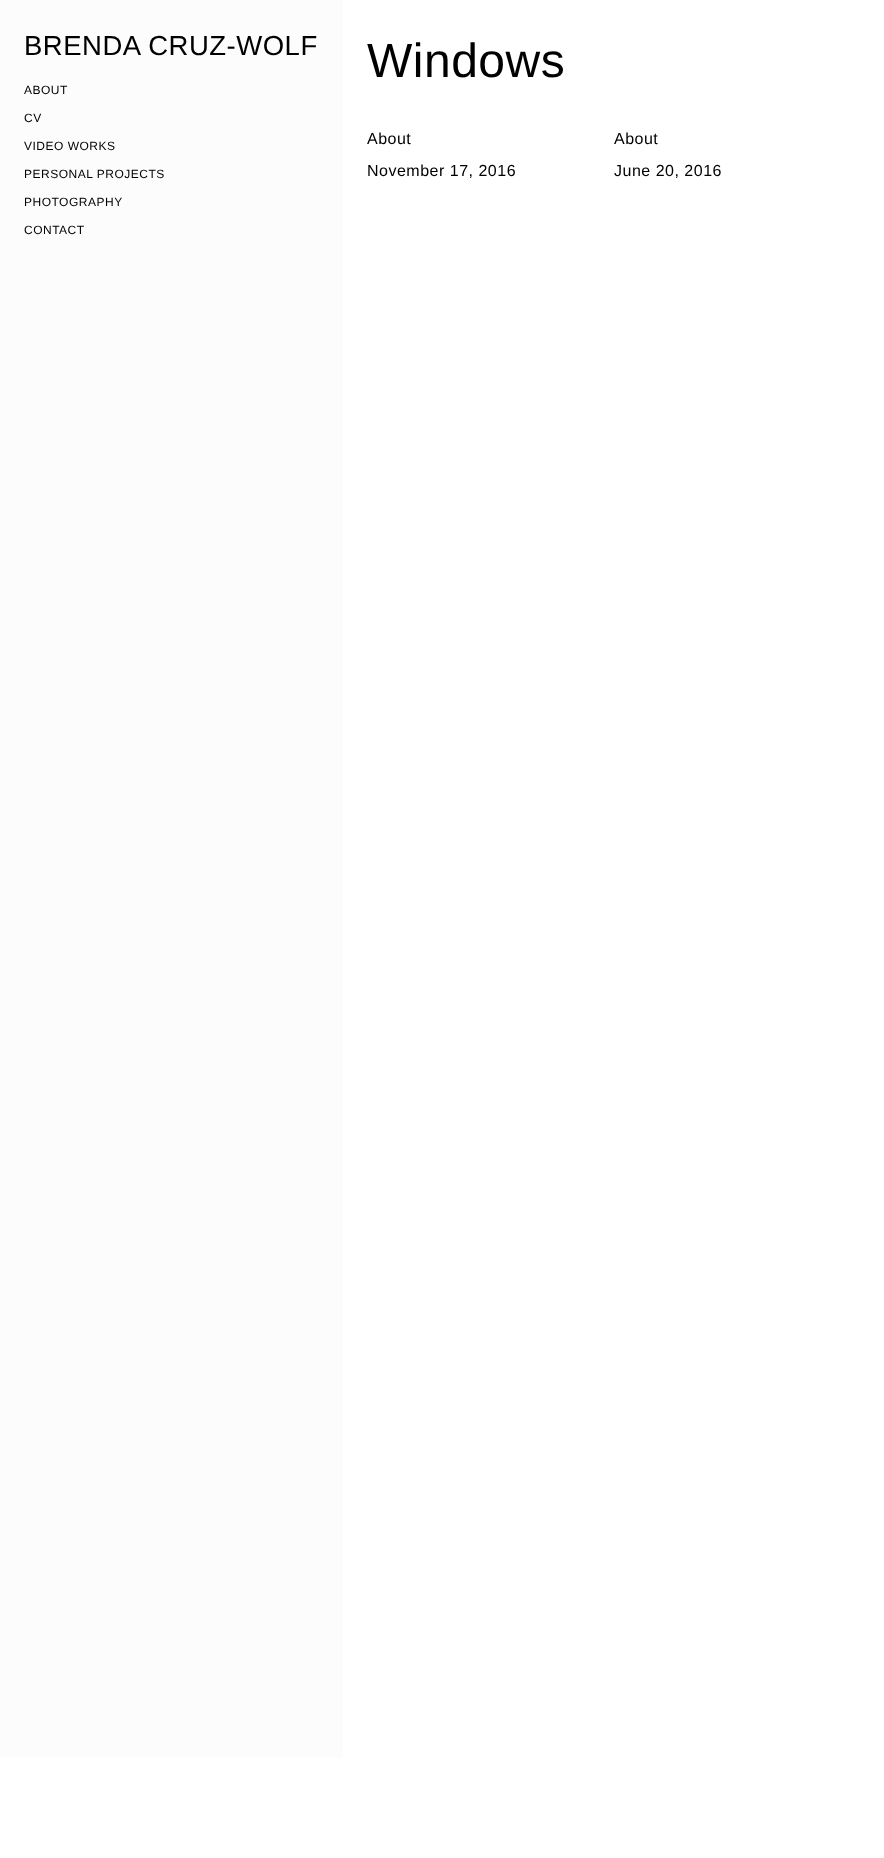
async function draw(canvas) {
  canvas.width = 884;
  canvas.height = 1858;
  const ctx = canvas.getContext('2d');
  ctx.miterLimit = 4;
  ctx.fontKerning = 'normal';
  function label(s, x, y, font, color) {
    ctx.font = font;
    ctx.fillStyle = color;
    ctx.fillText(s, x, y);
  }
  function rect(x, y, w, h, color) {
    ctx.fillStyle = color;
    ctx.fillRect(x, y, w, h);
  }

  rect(0, 0, 884, 1858, '#fff');
  rect(0, 0, 343, 1758, '#fcfcfc');
  ctx.letterSpacing = '0.5px';
  label('BRENDA CRUZ-WOLF', 24, 55, '27.5px Liberation Sans', '#000');
  label('ABOUT', 24, 94, '12px Liberation Sans', '#000');
  label('CV', 24, 122, '12px Liberation Sans', '#000');
  label('VIDEO WORKS', 24, 150, '12px Liberation Sans', '#000');
  label('PERSONAL PROJECTS', 24, 178, '12px Liberation Sans', '#000');
  label('PHOTOGRAPHY', 24, 206, '12px Liberation Sans', '#000');
  label('CONTACT', 24, 234, '12px Liberation Sans', '#000');
  label('Windows', 367, 77, '48px Liberation Sans', '#000');
  label('About', 367, 144, '16px Liberation Sans', '#000');
  label('November 17, 2016', 367, 176, '16px Liberation Sans', '#000');
  label('About', 614, 144, '16px Liberation Sans', '#000');
  label('June 20, 2016', 614, 176, '16px Liberation Sans', '#000');
}

draw(document.querySelector('canvas'));
